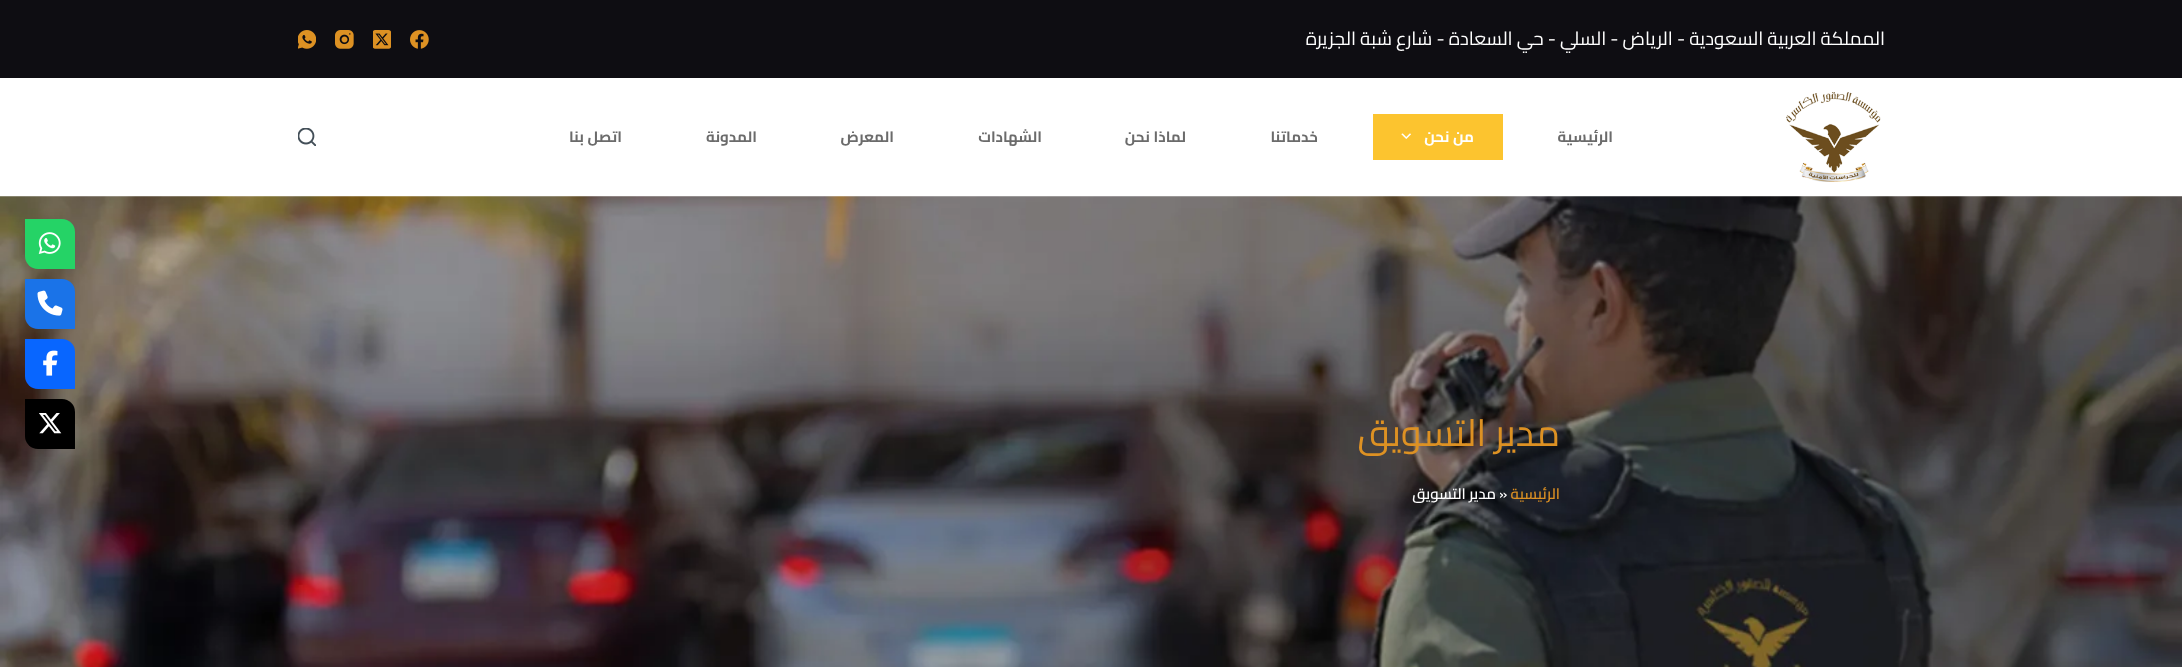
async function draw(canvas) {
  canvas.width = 2182;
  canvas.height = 667;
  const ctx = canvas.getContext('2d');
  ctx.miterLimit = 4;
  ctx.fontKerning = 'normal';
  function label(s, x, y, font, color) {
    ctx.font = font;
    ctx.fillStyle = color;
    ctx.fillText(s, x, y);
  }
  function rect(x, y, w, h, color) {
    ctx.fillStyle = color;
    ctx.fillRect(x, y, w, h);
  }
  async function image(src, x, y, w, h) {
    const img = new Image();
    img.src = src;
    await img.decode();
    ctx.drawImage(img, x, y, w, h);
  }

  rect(0, 0, 2182, 667, '#fff');
  rect(0, 0, 2182, 78, '#0e0d12');
  ctx.direction = 'rtl';
  label('المملكة العربية السعودية - الرياض - السلي - حي السعادة - شارع شبة الجزيرة', 1885, 45, '18.75px Cairo', '#fff');
  await image('assets/img1.png', 410, 30, 19, 19);
  await image('assets/img2.png', 373, 30, 18, 19);
  await image('assets/img3.png', 335, 30, 19, 19);
  await image('assets/img4.png', 298, 30, 18, 19);
  await image('assets/img5.png', 1786, 92, 95, 90);
  label('الرئيسية', 1613, 142, 'bold 15px Cairo', '#6b6b6b');
  rect(1373, 114, 130, 46, '#fcc42f');
  label('من نحن', 1474, 142, 'bold 15px Cairo', '#fff');
  await image('assets/img6.png', 1401, 133, 10, 6);
  label('خدماتنا', 1318, 142, 'bold 15px Cairo', '#6b6b6b');
  label('لماذا نحن', 1186, 142, 'bold 15px Cairo', '#6b6b6b');
  label('الشهادات', 1042, 142, 'bold 15px Cairo', '#6b6b6b');
  label('المعرض', 894, 142, 'bold 15px Cairo', '#6b6b6b');
  label('المدونة', 757, 142, 'bold 15px Cairo', '#6b6b6b');
  label('اتصل بنا', 622, 142, 'bold 15px Cairo', '#6b6b6b');
  await image('assets/img7.png', 298, 128, 18, 18);
  await image('assets/img8.png', 0, 196, 2182, 471);
  label('مدير التسويق', 1560, 446, '37.5px Cairo', '#dd9123');
  label('الرئيسية', 1560, 499, '600 15px Cairo', '#dd9123');
  ctx.direction = 'ltr';
  label('»', 1499, 499, '600 15px Cairo', '#fff');
  ctx.direction = 'rtl';
  label('مدير التسويق', 1496, 499, '600 15px Cairo', '#fff');
  ctx.fillStyle = '#25d366';
  ctx.beginPath();
  ctx.roundRect(25, 219, 50, 50, [0, 13, 0, 13]);
  ctx.fill();
  await image('assets/img9.png', 38, 232, 23, 22);
  ctx.fillStyle = '#1a73e8';
  ctx.beginPath();
  ctx.roundRect(25, 279, 50, 50, [0, 13, 0, 13]);
  ctx.fill();
  await image('assets/img10.png', 37, 290, 26, 26);
  ctx.fillStyle = '#0866ff';
  ctx.beginPath();
  ctx.roundRect(25, 339, 50, 50, [0, 13, 0, 13]);
  ctx.fill();
  await image('assets/img11.png', 43, 350, 15, 26);
  ctx.fillStyle = '#000';
  ctx.beginPath();
  ctx.roundRect(25, 399, 50, 50, [0, 13, 0, 13]);
  ctx.fill();
  await image('assets/img12.png', 39, 413, 23, 21);
}

draw(document.querySelector('canvas'));
